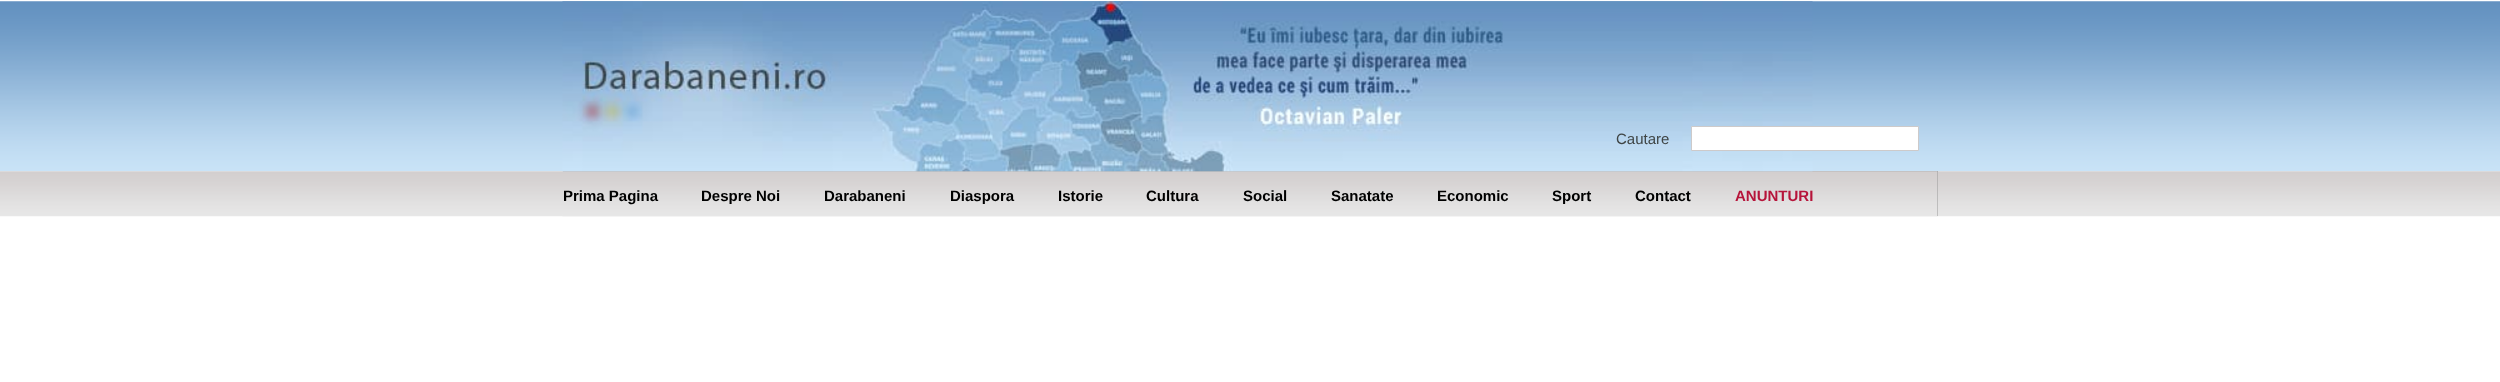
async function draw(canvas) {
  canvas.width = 2500;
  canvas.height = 382;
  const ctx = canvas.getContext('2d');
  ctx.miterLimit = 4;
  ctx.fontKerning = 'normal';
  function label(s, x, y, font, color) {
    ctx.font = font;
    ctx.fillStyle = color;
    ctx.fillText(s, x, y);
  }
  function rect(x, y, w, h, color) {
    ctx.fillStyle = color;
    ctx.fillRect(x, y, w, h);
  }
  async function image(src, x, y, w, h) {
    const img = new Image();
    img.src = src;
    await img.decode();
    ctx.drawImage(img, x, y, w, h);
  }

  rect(0, 0, 2500, 382, '#fff');
  await image('assets/img1.png', 0, 1, 2500, 171);
  await image('assets/img3.png', 0, 171, 2500, 46);
  rect(563, 171, 1375, 45, '#999');
  await image('assets/img4.png', 562, 171, 1376, 46);
  await image('assets/img2.png', 562, 1, 1251, 171);
  label('Cautare', 1616, 144, '15px Liberation Sans', '#3f4545');
  ctx.fillStyle = '#fff';
  ctx.beginPath();
  ctx.rect(1691.5, 126.5, 227, 24);
  ctx.fill();
  ctx.strokeStyle = '#cdcaca';
  ctx.stroke();
  label('Prima Pagina', 563, 201, 'bold 15px Liberation Sans', '#000');
  label('Despre Noi', 701, 201, 'bold 15px Liberation Sans', '#000');
  label('Darabaneni', 824, 201, 'bold 15px Liberation Sans', '#000');
  label('Diaspora', 950, 201, 'bold 15px Liberation Sans', '#000');
  label('Istorie', 1058, 201, 'bold 15px Liberation Sans', '#000');
  label('Cultura', 1146, 201, 'bold 15px Liberation Sans', '#000');
  label('Social', 1243, 201, 'bold 15px Liberation Sans', '#000');
  label('Sanatate', 1331, 201, 'bold 15px Liberation Sans', '#000');
  label('Economic', 1437, 201, 'bold 15px Liberation Sans', '#000');
  label('Sport', 1552, 201, 'bold 15px Liberation Sans', '#000');
  label('Contact', 1635, 201, 'bold 15px Liberation Sans', '#000');
  label('ANUNTURI', 1735, 201, 'bold 15px Liberation Sans', '#b6143a');
}

draw(document.querySelector('canvas'));
